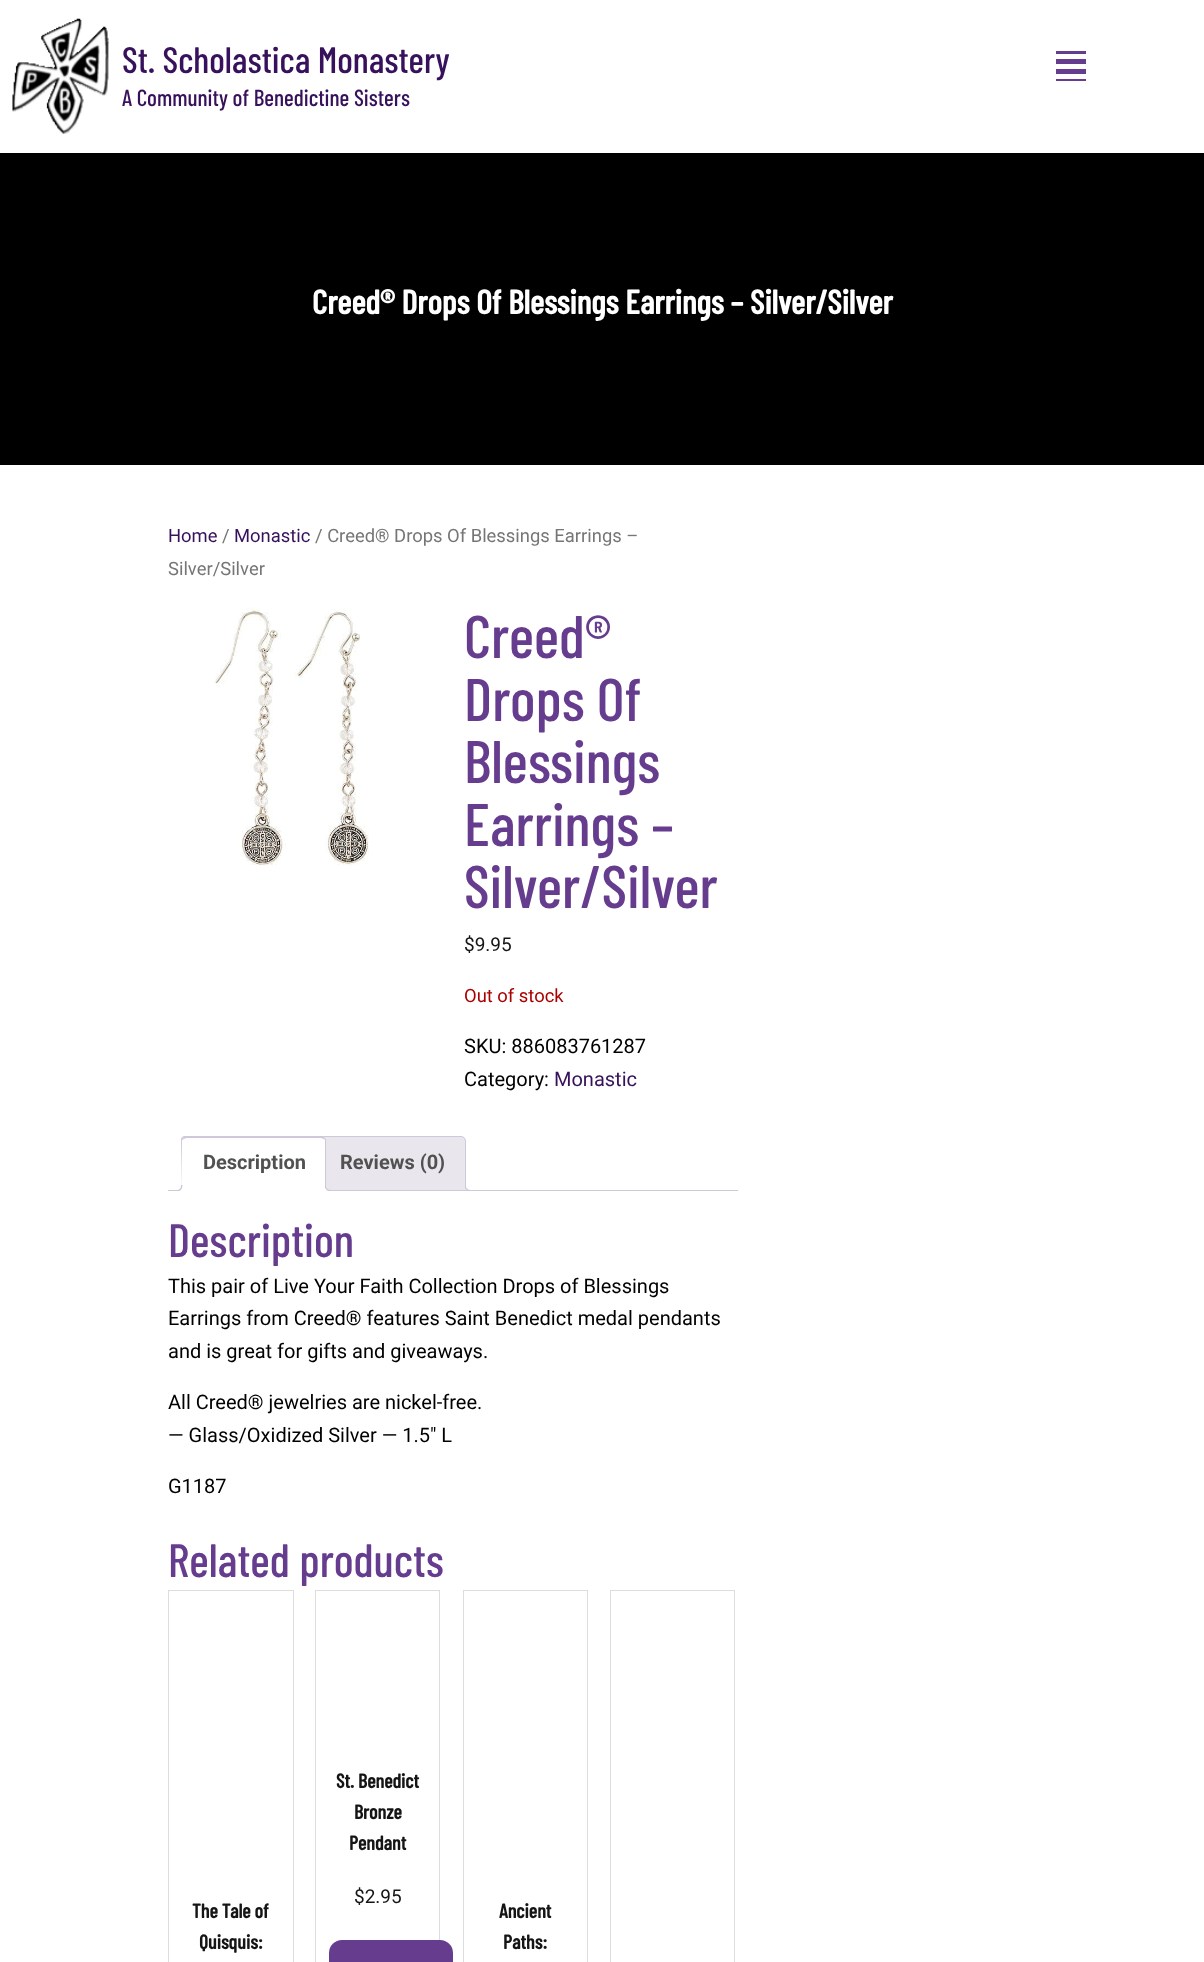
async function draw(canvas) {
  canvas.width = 1204;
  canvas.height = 1962;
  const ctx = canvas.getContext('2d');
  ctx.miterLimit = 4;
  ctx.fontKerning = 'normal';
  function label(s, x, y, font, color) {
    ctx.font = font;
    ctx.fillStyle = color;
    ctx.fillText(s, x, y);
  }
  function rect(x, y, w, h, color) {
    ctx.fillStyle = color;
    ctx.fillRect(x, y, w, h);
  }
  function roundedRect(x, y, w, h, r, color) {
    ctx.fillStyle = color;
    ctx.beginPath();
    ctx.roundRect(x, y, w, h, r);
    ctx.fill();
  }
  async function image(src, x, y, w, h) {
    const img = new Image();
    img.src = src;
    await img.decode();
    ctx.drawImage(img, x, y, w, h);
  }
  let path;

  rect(0, 0, 1204, 1962, '#fff');
  await image('assets/img1.png', 12, 18, 97, 116);
  label('St. Scholastica Monastery', 122, 73, '500 36.75px Barlow Condensed', '#37115b');
  label('A Community of Benedictine Sisters', 122, 106, '500 23.25px Barlow Condensed', '#37115b');
  rect(1056, 51, 30, 30, '#663c8e');
  rect(1056, 54, 30, 5, '#fff');
  rect(1056, 64, 30, 5, '#fff');
  rect(1056, 74, 30, 5, '#fff');
  rect(0, 153, 1204, 312, '#000');
  label('Creed® Drops Of Blessings Earrings – Silver/Silver', 312, 314, 'bold 33.75px Barlow Condensed', '#fff');
  label('Home', 168, 542, '18.4px Roboto', '#37115b');
  label('/', 222, 542, '18.4px Roboto', '#767676');
  label('Monastic', 234, 542, '18.4px Roboto', '#37115b');
  label('/ Creed® Drops Of Blessings Earrings –', 315, 542, '18.4px Roboto', '#767676');
  label('Silver/Silver', 168, 575, '18.4px Roboto', '#767676');
  await image('assets/img2.png', 214, 604, 155, 262);
  label('Creed®', 464, 658, '500 60px Barlow Condensed', '#663c8e');
  label('Drops Of', 464, 721, '500 60px Barlow Condensed', '#663c8e');
  label('Blessings', 464, 783, '500 60px Barlow Condensed', '#663c8e');
  label('Earrings –', 464, 846, '500 60px Barlow Condensed', '#663c8e');
  label('Silver/Silver', 464, 908, '500 60px Barlow Condensed', '#663c8e');
  label('$9.95', 464, 951, '19px Roboto', '#151515');
  label('Out of stock', 464, 1002, '18.4px Roboto', '#a00');
  label('SKU: 886083761287', 464, 1053, '20px Roboto', '#000');
  label('Category:', 464, 1086, '20px Roboto', '#000');
  label('Monastic', 554, 1086, '20px Roboto', '#37115b');
  ctx.fillStyle = '#e9e6ed';
  ctx.beginPath();
  ctx.roundRect(319.5, 1136.5, 146, 54, [4.5, 4.5, 0, 0]);
  ctx.fill();
  ctx.strokeStyle = '#cfc8d8';
  ctx.stroke();
  ctx.save();
  ctx.beginPath();
  ctx.rect(168, 1136, 570, 55);
  ctx.clip();
  path = new Path2D('M463 1188C463 1192 465 1194 469 1194V1191C467.5 1191 466 1189.5 465.5 1188Z');
  ctx.fill(path);
  ctx.restore();
  ctx.fillStyle = '#cfc8d8';
  path = new Path2D('M465 1185H471V1191C468 1191 465 1190 465 1186ZM466 1185H471V1190C469 1190 466 1189 466 1186Z');
  ctx.fill(path, 'evenodd');
  rect(168, 1190, 570, 1, '#cfc8d8');
  ctx.fillStyle = '#fff';
  ctx.beginPath();
  ctx.roundRect(181, 1136, 145, 55, [5, 5, 0, 0]);
  ctx.fill();
  ctx.fillStyle = '#cfc8d8';
  path = new Path2D('M186 1138L184 1139L182 1137L184 1136H323L325 1138L324 1139L321 1138Z');
  ctx.fill(path);
  path = new Path2D('M325 1138C326 1138 326 1140 326 1141V1191L325 1190V1140L324 1139Z');
  ctx.fill(path);
  ctx.fillStyle = '#fff';
  path = new Path2D('M326 1191L325 1190H182V1191Z');
  ctx.fill(path);
  ctx.fillStyle = '#cfc8d8';
  path = new Path2D('M181 1139L182 1137L184 1139L182 1140V1190V1191Z');
  ctx.fill(path);
  label('Description', 203, 1169, 'bold 20px Roboto', '#515151');
  ctx.save();
  ctx.beginPath();
  ctx.rect(168, 1136, 570, 55);
  ctx.clip();
  ctx.fillStyle = '#fff';
  path = new Path2D('M179 1191V1194C183 1194 185 1192 185 1188H182C181.5 1189.5 180.5 1190.5 179 1191Z');
  ctx.fill(path);
  ctx.restore();
  ctx.fillStyle = '#cfc8d8';
  path = new Path2D('M176 1185H182.5C182.5 1189.5 180.5 1191 176 1191ZM176 1185H181C181 1188.5 180 1190 176 1190Z');
  ctx.fill(path, 'evenodd');
  ctx.save();
  ctx.beginPath();
  ctx.rect(168, 1136, 570, 55);
  ctx.clip();
  ctx.fillStyle = '#fff';
  path = new Path2D('M323 1188C323 1192 325 1194 329 1194V1191C327.5 1191 326 1189.5 325.5 1188Z');
  ctx.fill(path);
  ctx.restore();
  path = new Path2D('M325 1185H331V1191C328 1191 325 1190 325 1186ZM326 1185H331V1190C329 1190 326 1189 326 1186Z');
  ctx.fill(path, 'evenodd');
  label('Reviews (0)', 340, 1169, 'bold 20px Roboto', '#515151');
  label('Description', 168, 1257, '500 46.75px Barlow Condensed', '#663c8e');
  label('This pair of Live Your Faith Collection Drops of Blessings', 168, 1293, '20px Roboto', '#000');
  label('Earrings from Creed® features Saint Benedict medal pendants', 168, 1325, '20px Roboto', '#000');
  label('and is great for gifts and giveaways.', 168, 1358, '20px Roboto', '#000');
  label('All Creed® jewelries are nickel-free.', 168, 1409, '20px Roboto', '#000');
  label('— Glass/Oxidized Silver — 1.5" L', 168, 1442, '20px Roboto', '#000');
  label('G1187', 168, 1493, '20px Roboto', '#000');
  label('Related products', 168, 1577, '500 46.75px Barlow Condensed', '#663c8e');
  ctx.strokeStyle = '#ddd';
  ctx.strokeRect(315.5, 1590.5, 124, 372);
  label('St. Benedict', 336, 1788, 'bold 20px Barlow Condensed', '#151515');
  label('Bronze', 354, 1819, 'bold 20px Barlow Condensed', '#151515');
  label('Pendant', 349, 1850, 'bold 20px Barlow Condensed', '#151515');
  label('$2.95', 354, 1903, '19px Roboto', '#151515');
  roundedRect(329, 1940, 124, 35, 13, '#663c8e');
  ctx.strokeRect(610.5, 1590.5, 124, 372);
  ctx.strokeRect(168.5, 1590.5, 125, 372);
  label('The Tale of', 192, 1918, 'bold 20px Barlow Condensed', '#151515');
  label('Quisquis:', 199, 1949, 'bold 20px Barlow Condensed', '#151515');
  ctx.strokeRect(463.5, 1590.5, 124, 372);
  label('Ancient', 499, 1918, 'bold 20px Barlow Condensed', '#151515');
  label('Paths:', 503, 1949, 'bold 20px Barlow Condensed', '#151515');
}

draw(document.querySelector('canvas'));
